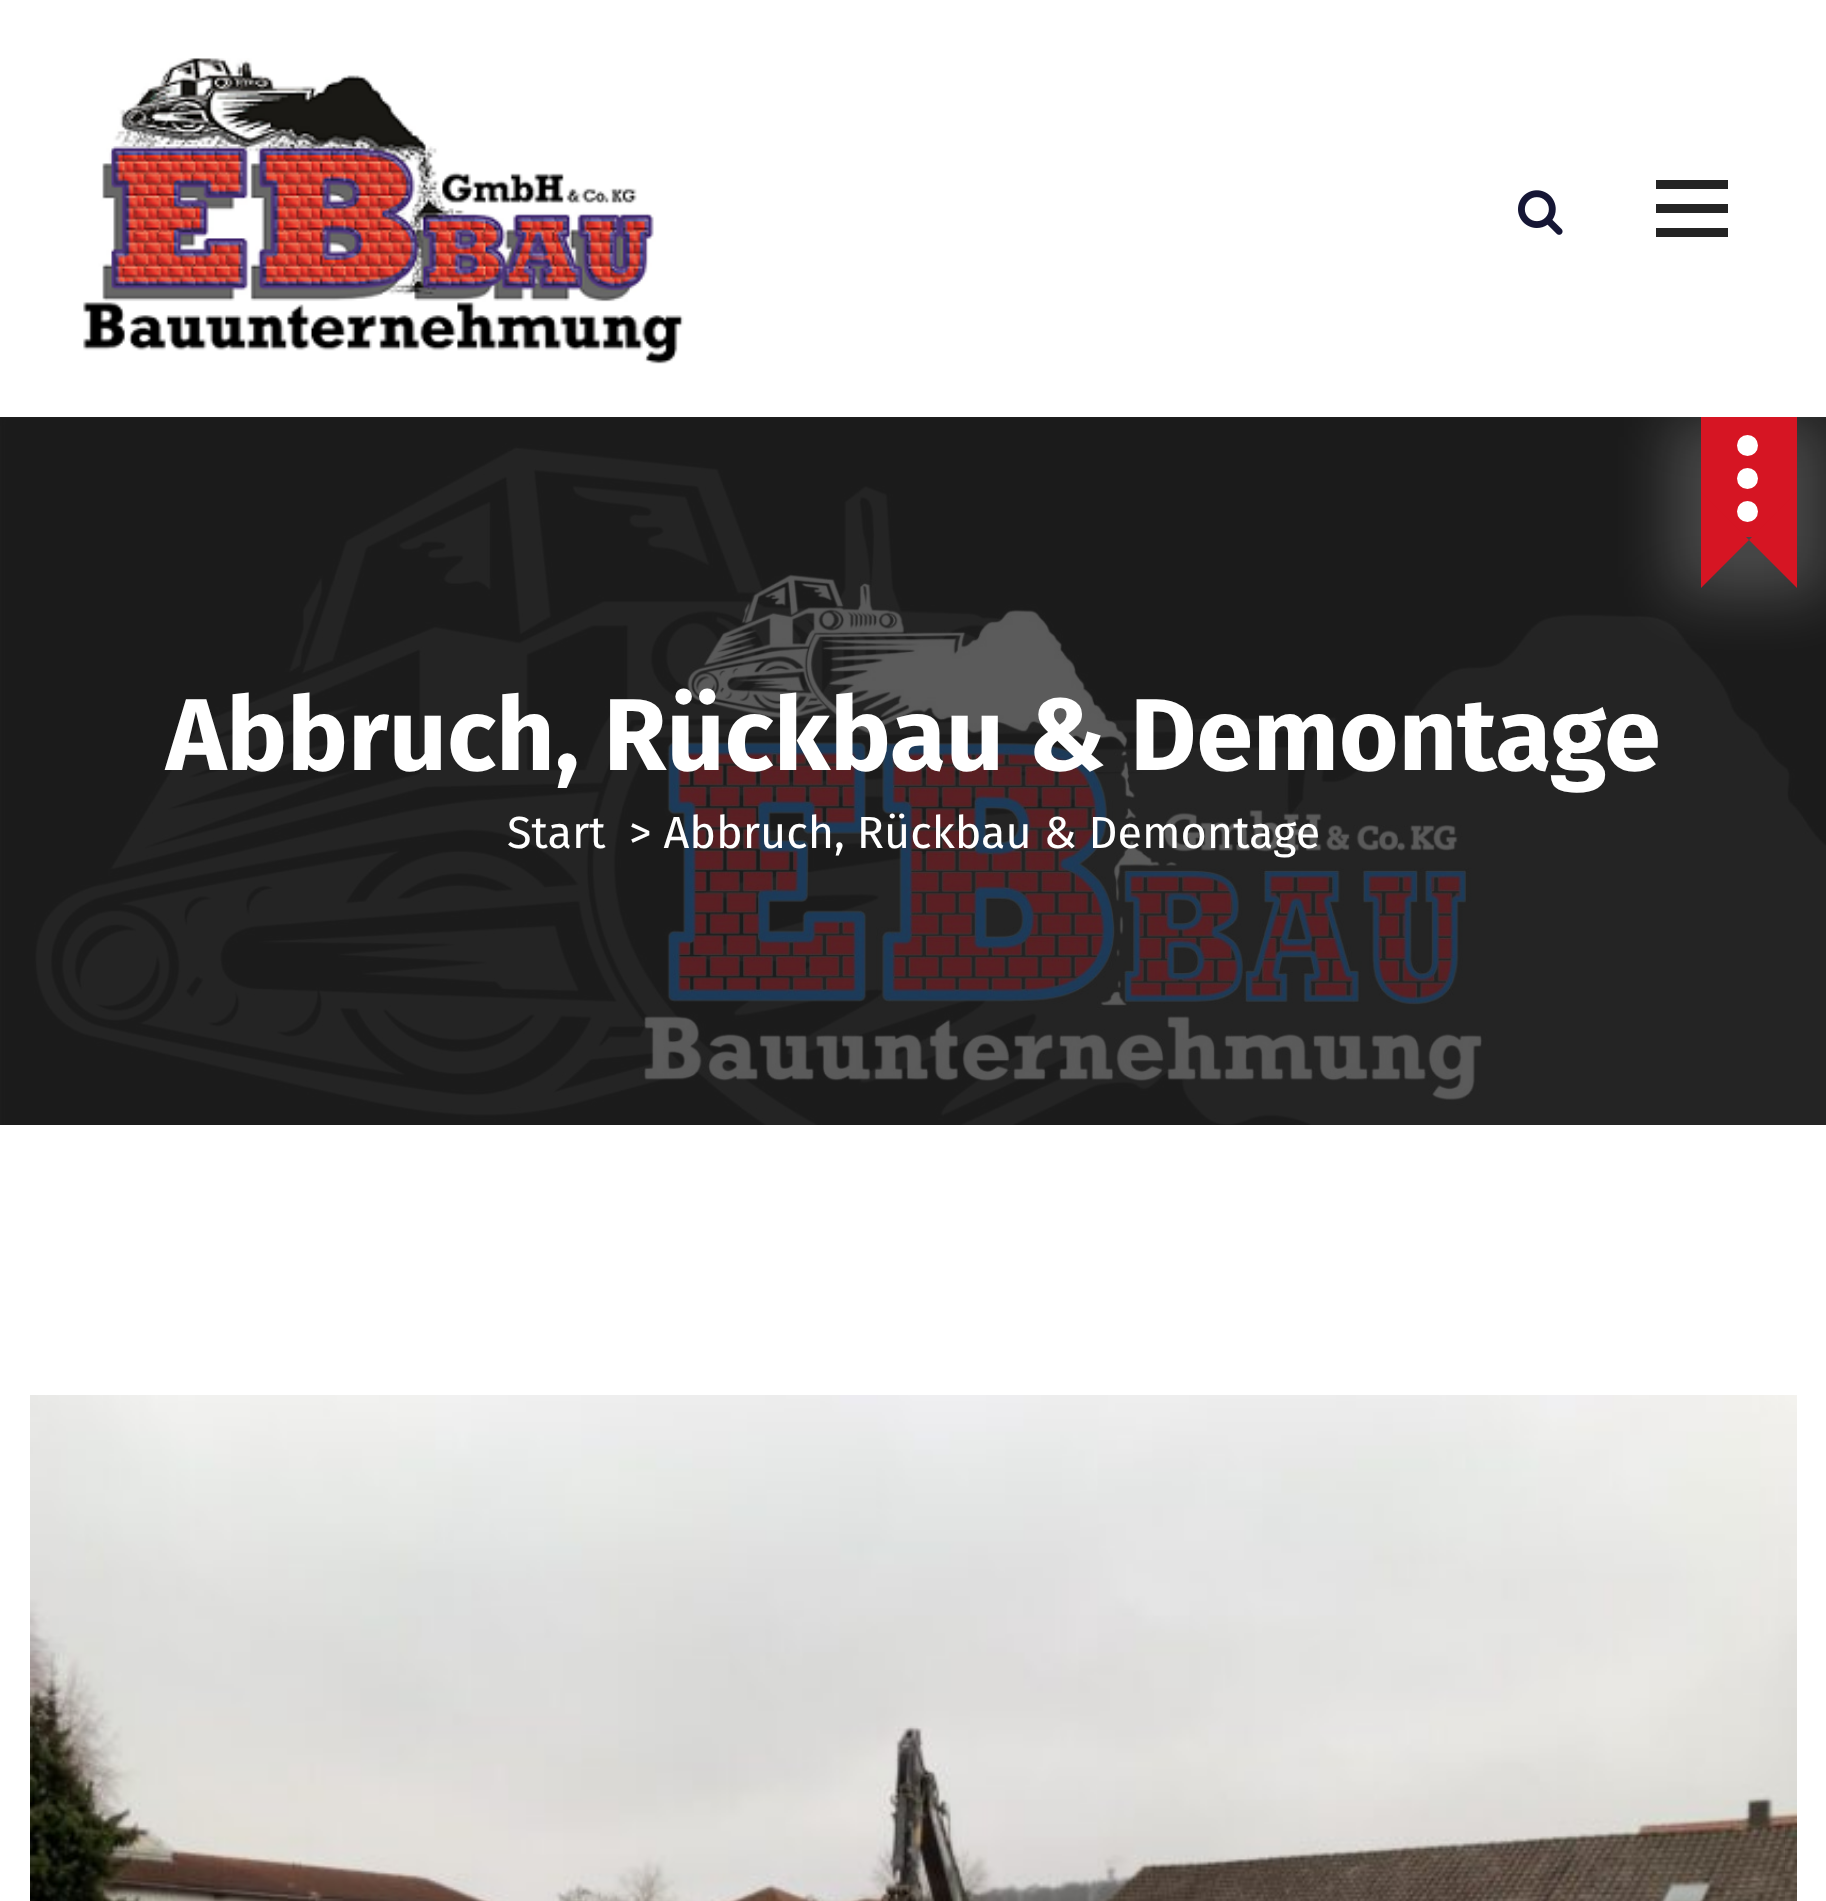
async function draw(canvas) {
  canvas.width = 1826;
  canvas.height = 1901;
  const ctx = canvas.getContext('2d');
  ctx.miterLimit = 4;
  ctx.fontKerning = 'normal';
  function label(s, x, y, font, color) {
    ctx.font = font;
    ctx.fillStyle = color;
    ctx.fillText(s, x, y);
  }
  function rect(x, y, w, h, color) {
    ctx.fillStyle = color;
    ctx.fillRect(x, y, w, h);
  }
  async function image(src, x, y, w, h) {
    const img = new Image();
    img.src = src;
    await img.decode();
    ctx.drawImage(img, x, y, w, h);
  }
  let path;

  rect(0, 0, 1826, 1901, '#fff');
  await image('assets/img1.png', 83, 58, 601, 306);
  await image('assets/img2.png', 1518, 190, 45, 45);
  rect(1656, 180, 72, 9, '#242424');
  rect(1656, 204, 72, 9, '#242424');
  rect(1656, 228, 72, 9, '#242424');
  await image('assets/img3.png', 0, 417, 1826, 708);
  ctx.fillStyle = '#ffffff33';
  ctx.filter = 'blur(30px)';
  ctx.beginPath();
  ctx.rect(1671, 417, 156, 180);
  ctx.fill();
  ctx.filter = 'none';
  rect(1701, 417, 96, 120, '#d61523');
  ctx.fillStyle = '#fff';
  ctx.beginPath();
  ctx.arc(1747.5, 478.5, 10.5, 0, 2 * Math.PI);
  ctx.fill();
  ctx.beginPath();
  ctx.arc(1747.5, 445.5, 10.5, 0, 2 * Math.PI);
  ctx.fill();
  ctx.fillStyle = '#d61523';
  path = new Path2D('M1797 492V588L1749 540Z');
  ctx.fill(path);
  path = new Path2D('M1701 588V492L1749 540Z');
  ctx.fill(path);
  ctx.fillStyle = '#fff';
  ctx.beginPath();
  ctx.arc(1747.5, 511.5, 10.5, 0, 2 * Math.PI);
  ctx.fill();
  label('Abbruch, Rückbau & Demontage', 166, 770, 'bold 102px Fira Sans', '#fff');
  label('Start', 507, 848, '45px Fira Sans', '#fff');
  label('> Abbruch, Rückbau & Demontage', 629, 848, '45px Fira Sans', '#fff');
  await image('assets/img4.png', 30, 1395, 1767, 506);
}

draw(document.querySelector('canvas'));
